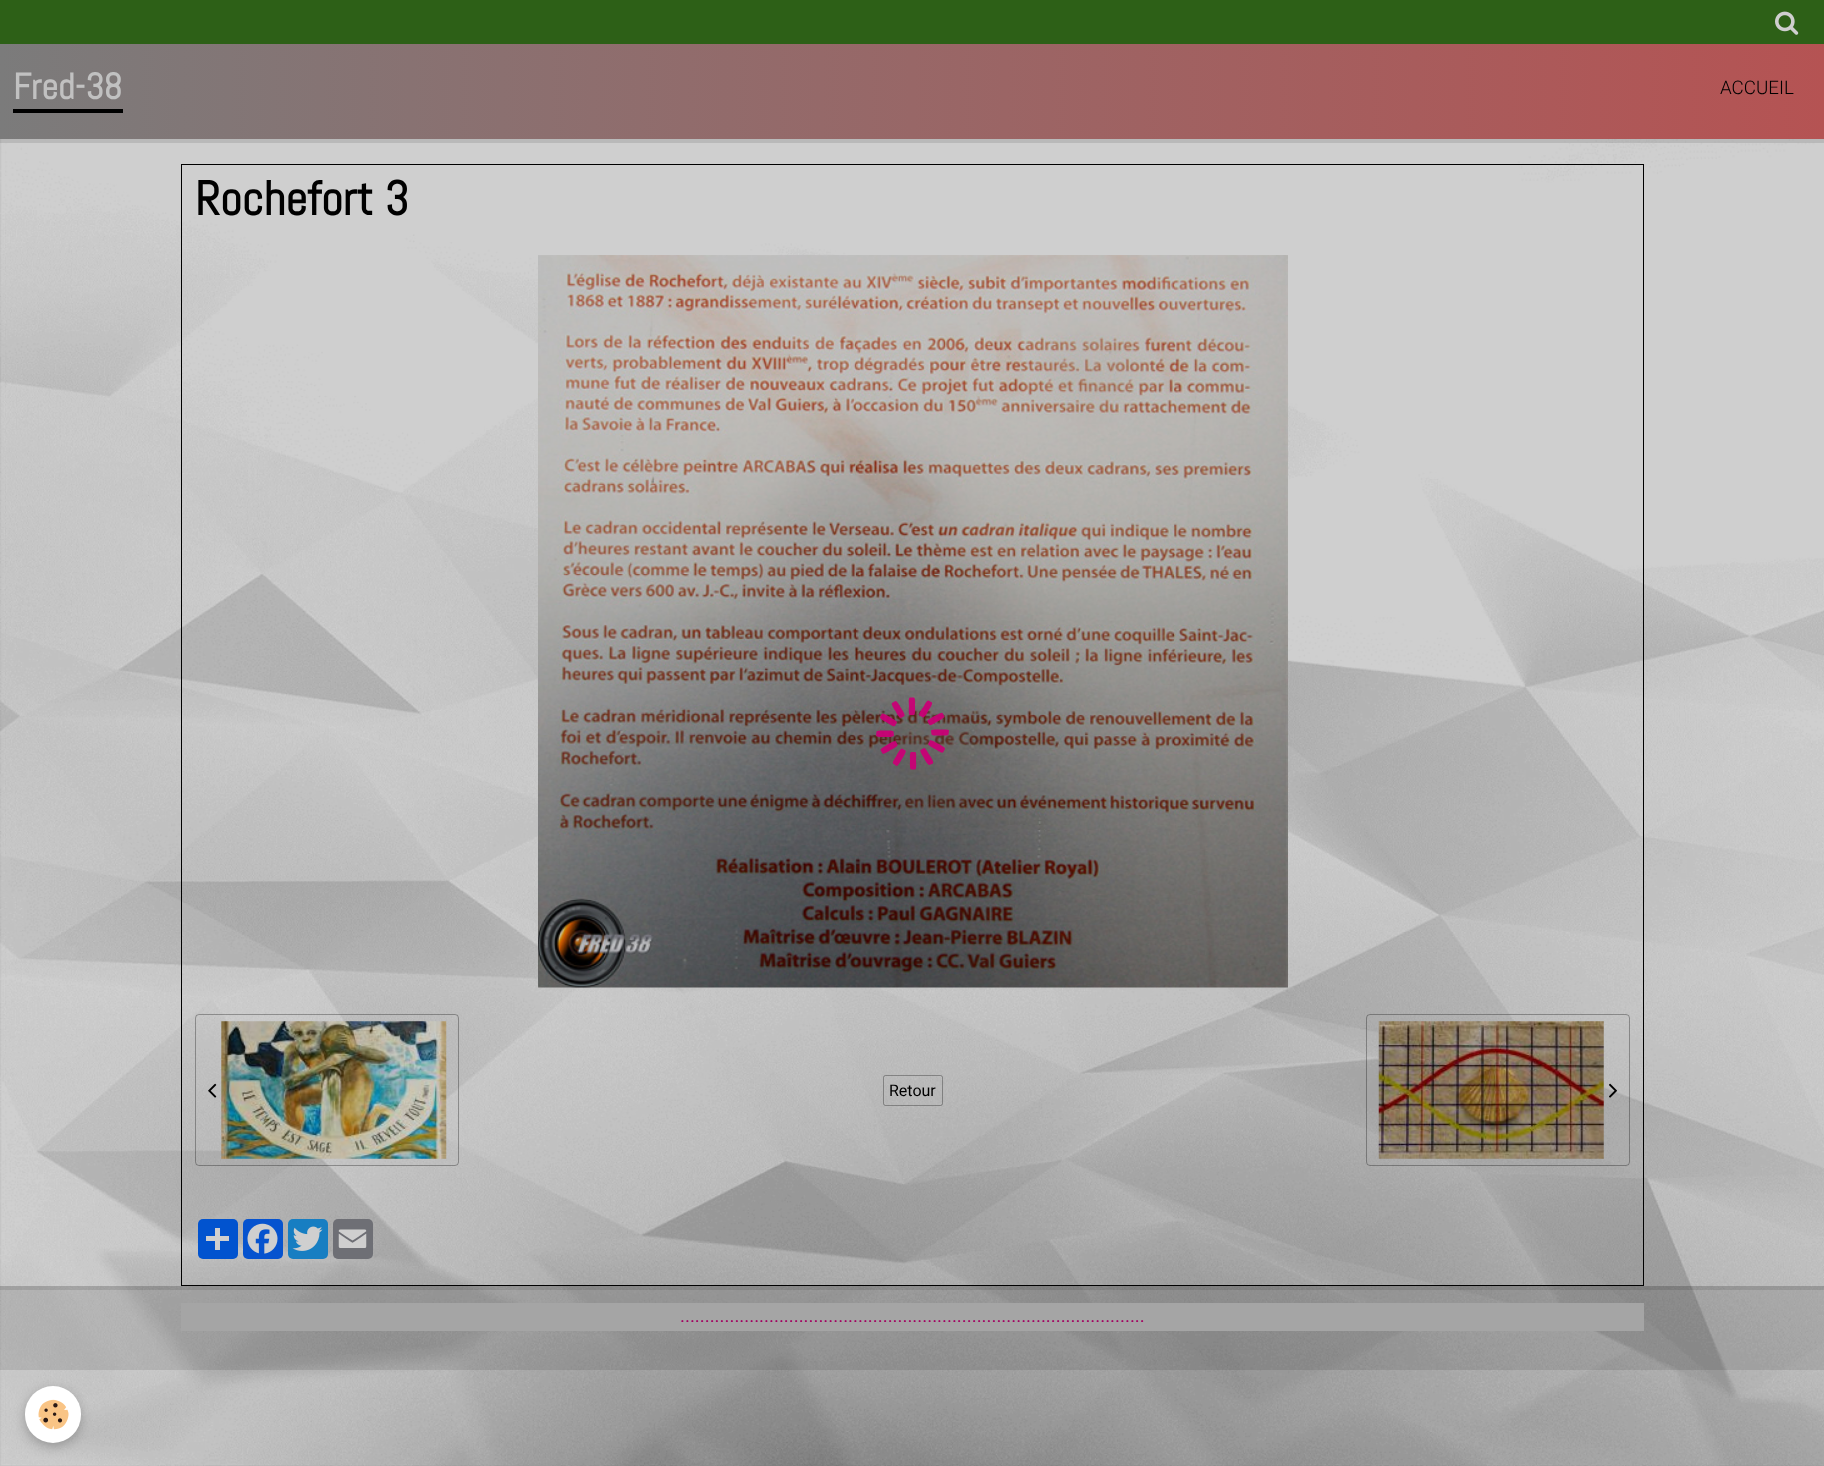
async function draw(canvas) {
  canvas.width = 1824;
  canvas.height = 1466;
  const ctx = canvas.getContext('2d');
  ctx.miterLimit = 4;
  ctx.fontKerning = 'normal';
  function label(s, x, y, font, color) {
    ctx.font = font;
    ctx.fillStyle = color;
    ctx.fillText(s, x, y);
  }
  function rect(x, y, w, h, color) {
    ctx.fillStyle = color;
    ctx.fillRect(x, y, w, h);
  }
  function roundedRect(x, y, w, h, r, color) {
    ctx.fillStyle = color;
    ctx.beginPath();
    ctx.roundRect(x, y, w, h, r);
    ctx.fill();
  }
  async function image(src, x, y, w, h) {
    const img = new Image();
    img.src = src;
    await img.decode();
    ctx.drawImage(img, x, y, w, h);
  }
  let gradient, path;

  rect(0, 0, 1824, 1466, '#cfcfcf');
  await image('assets/img1.png', 0, 139, 1824, 1327);
  rect(0, 139, 1824, 4, '#0000001a');
  gradient = ctx.createLinearGradient(0, 69, 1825, 69);
  gradient.addColorStop(0, '#7b7b7b');
  gradient.addColorStop(1, '#b55353');
  ctx.fillStyle = gradient;
  ctx.fillRect(0, 44, 1824, 95);
  rect(0, 0, 1824, 44, '#2d6017');
  await image('assets/img2.png', 1775, 11, 24, 24);
  rect(13, 109, 110, 4, '#000');
  label('Fred-38', 13, 99, 'bold 36.5px Abel', '#c1c1c1');
  label('ACCUEIL', 1720, 94, '300 18.75px Roboto', '#000');
  ctx.strokeStyle = '#000';
  ctx.strokeRect(181.5, 164.5, 1462, 1121);
  label('Rochefort 3', 195, 215, 'bold 48px Abel', '#000');
  await image('assets/img3.png', 538, 255, 750, 733);
  await image('assets/img4.png', 208, 1083, 9, 15);
  await image('assets/img5.png', 221, 1021, 226, 138);
  ctx.beginPath();
  ctx.roundRect(195.5, 1014.5, 263, 151, 3.5);
  ctx.strokeStyle = '#0000004d';
  ctx.stroke();
  ctx.beginPath();
  ctx.roundRect(883.5, 1075.5, 59, 30, 2);
  ctx.stroke();
  label('Retour', 889, 1096, '16px Roboto', '#000');
  await image('assets/img6.png', 1378, 1021, 226, 138);
  await image('assets/img7.png', 1609, 1083, 8, 15);
  ctx.beginPath();
  ctx.roundRect(1366.5, 1014.5, 263, 151, 3.5);
  ctx.stroke();
  roundedRect(198, 1219, 40, 40, 5, '#0153cf');
  rect(215, 1228, 5, 22, '#cfcfcf');
  rect(206, 1236, 23, 5, '#cfcfcf');
  roundedRect(243, 1219, 40, 40, 5, '#0653cf');
  await image('assets/img8.png', 247, 1223, 31, 31);
  roundedRect(288, 1219, 40, 40, 5, '#177ec2');
  await image('assets/img9.png', 292, 1226, 31, 25);
  roundedRect(333, 1219, 40, 40, 5, '#6e6f75');
  await image('assets/img10.png', 338, 1229, 29, 19);
  ctx.fillStyle = '#c90076f2';
  path = new Path2D('M910 697.5H914C915.5 698.5 915 705 915 706C915 707.5 915.5 714 914 715H910C908 715 909 707 909 706C909 705.5 908 697.5 910 697.5ZM928.5 700.5L932 702.5C933 704 929 709.5 928.5 710.5C928 711.5 925 717.5 923 717.5L919.5 715.5C918 714.5 922.5 708 923 707.5C923.5 707 927 699.5 928.5 700.5Z');
  ctx.fill(path);
  path = new Path2D('M942.5 713L944.5 716.5C944.5 718 938.5 721 937.5 721.5C936.5 722 931 726 929.5 725L927.5 721.5C926.5 720 934 716.5 934.5 716C935 716 942 711.5 942.5 713ZM949 730.5L948.5 734.5C948 736 941.5 735.5 940 735.5C938.5 735.5 932 736 931.5 734.5L931 730.5C931.5 729 939.5 729.5 940 729.5C940.5 729.5 949 729 949 730.5ZM945 749L943 752.5C941.5 753.5 936 749.5 935 749C934 748.5 928 745.5 928 744L930 740.5C931 739 937.5 743.5 938 743.5C938.5 744 946 747.5 945 749Z');
  ctx.fill(path);
  path = new Path2D('M933 763.5L929.5 765C927.5 765 924.5 759.5 924 758C923.5 757 919.5 751.5 920.5 750L924 748C925.5 747.5 929 754.5 929.5 755C930 755.5 934.5 762.5 933 763.5ZM915 769.5H911C909.5 768.5 910 762 910 760.5C910 759.5 909.5 753 911 752H915C917 752 916 760 916 760.5C916 761.5 917 769.5 915 769.5ZM896.5 766L893 763.5C892 762 896 757 896.5 755.5C897 754.5 900 748.5 902 748.5L905.5 750.5C907 751.5 902.5 758 902 759C901.5 759.5 898 766.5 896.5 766Z');
  ctx.fill(path);
  path = new Path2D('M882.5 753.5L880.5 750C880.5 748 886.5 745.5 887.5 744.5C888.5 744 894 740.5 895.5 741L897.5 744.5C898.5 746.5 891 750 890.5 750C890 750.5 883 755 882.5 753.5ZM876 735.5L876.5 731.5C877 730 883.5 730.5 885 730.5C886.5 730.5 893 730 893.5 731.5L894 735.5C893.5 737.5 885.5 737 885 737C884.5 737 876 737.5 876 735.5ZM880 717L882 713.5C883.5 713 889 716.5 890 717C891 718 897 720.5 897 722.5L895 726C894 727.5 887.5 723 887 722.5C886.5 722.5 879 718.5 880 717Z');
  ctx.fill(path);
  path = new Path2D('M892 703L895.5 701C897.5 701 900.5 707 901 708C901.5 709 905.5 714.5 904.5 716L901 718C899.5 719 896 712 895.5 711C895 710.5 890.5 704 892 703Z');
  ctx.fill(path);
  rect(0, 1286, 1824, 84, '#0000001a');
  rect(0, 1286, 1824, 4, '#0000001a');
  rect(181, 1303, 1463, 28, '#a5a5a5');
  label('..............................................................................................', 680, 1322, '18.75px Roboto', '#a30060');
  ctx.fillStyle = '#0000003d';
  ctx.filter = 'blur(6px)';
  ctx.beginPath();
  ctx.roundRect(25, 1390, 56, 56, 28);
  ctx.fill();
  ctx.filter = 'none';
  roundedRect(25, 1386, 56, 57, 28, '#fff');
  await image('assets/img11.png', 38, 1399, 31, 31);
}

draw(document.querySelector('canvas'));
